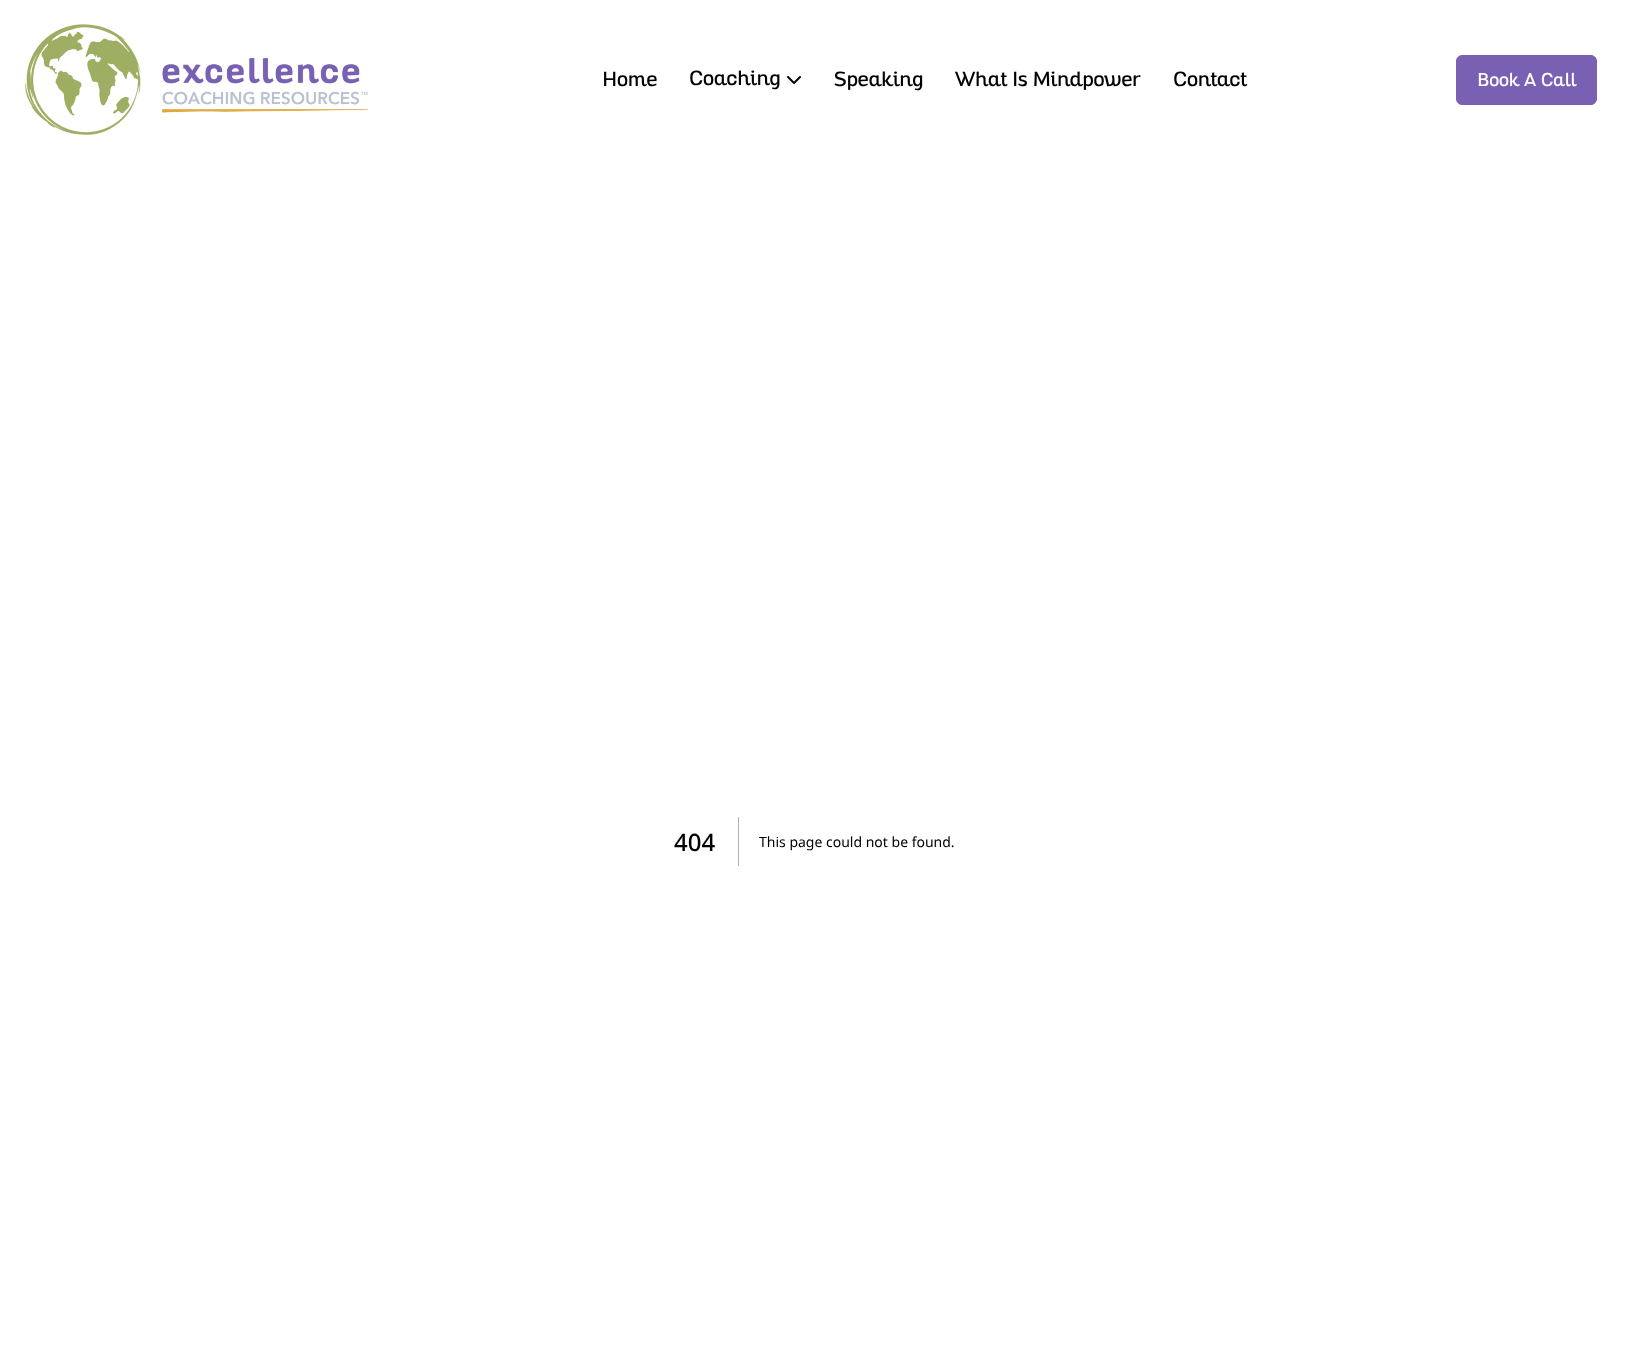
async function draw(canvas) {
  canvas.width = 1629;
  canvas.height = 1363;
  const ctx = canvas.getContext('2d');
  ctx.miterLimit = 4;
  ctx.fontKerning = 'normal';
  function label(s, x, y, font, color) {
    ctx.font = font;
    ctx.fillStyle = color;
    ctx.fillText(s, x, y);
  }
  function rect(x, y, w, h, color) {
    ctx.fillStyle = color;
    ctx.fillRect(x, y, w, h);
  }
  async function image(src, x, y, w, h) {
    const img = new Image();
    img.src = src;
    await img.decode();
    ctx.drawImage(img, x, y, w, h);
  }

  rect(0, 0, 1629, 1363, '#fff');
  await image('assets/img1.png', 25, 24, 344, 111);
  label('Home', 602, 86, '20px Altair', '#000');
  label('Coaching', 689, 85, '20px Altair', '#000');
  await image('assets/img2.png', 787, 76, 14, 8);
  label('Speaking', 834, 86, '20px Altair', '#000');
  label('What Is Mindpower', 955, 86, '20px Altair', '#000');
  label('Contact', 1173, 86, '20px Altair', '#000');
  ctx.fillStyle = '#7960b3';
  ctx.beginPath();
  ctx.roundRect(1456.5, 55.5, 140, 49, 5.5);
  ctx.fill();
  ctx.strokeStyle = '#7960b3';
  ctx.stroke();
  label('Book A Call', 1477, 86, '18px Altair', '#fff');
  rect(738, 817, 1, 49, '#b3b3b3');
  label('404', 674, 851, '500 24px Noto Sans', '#000');
  label('This page could not be found.', 759, 847, '14px Noto Sans', '#000');
}

draw(document.querySelector('canvas'));
